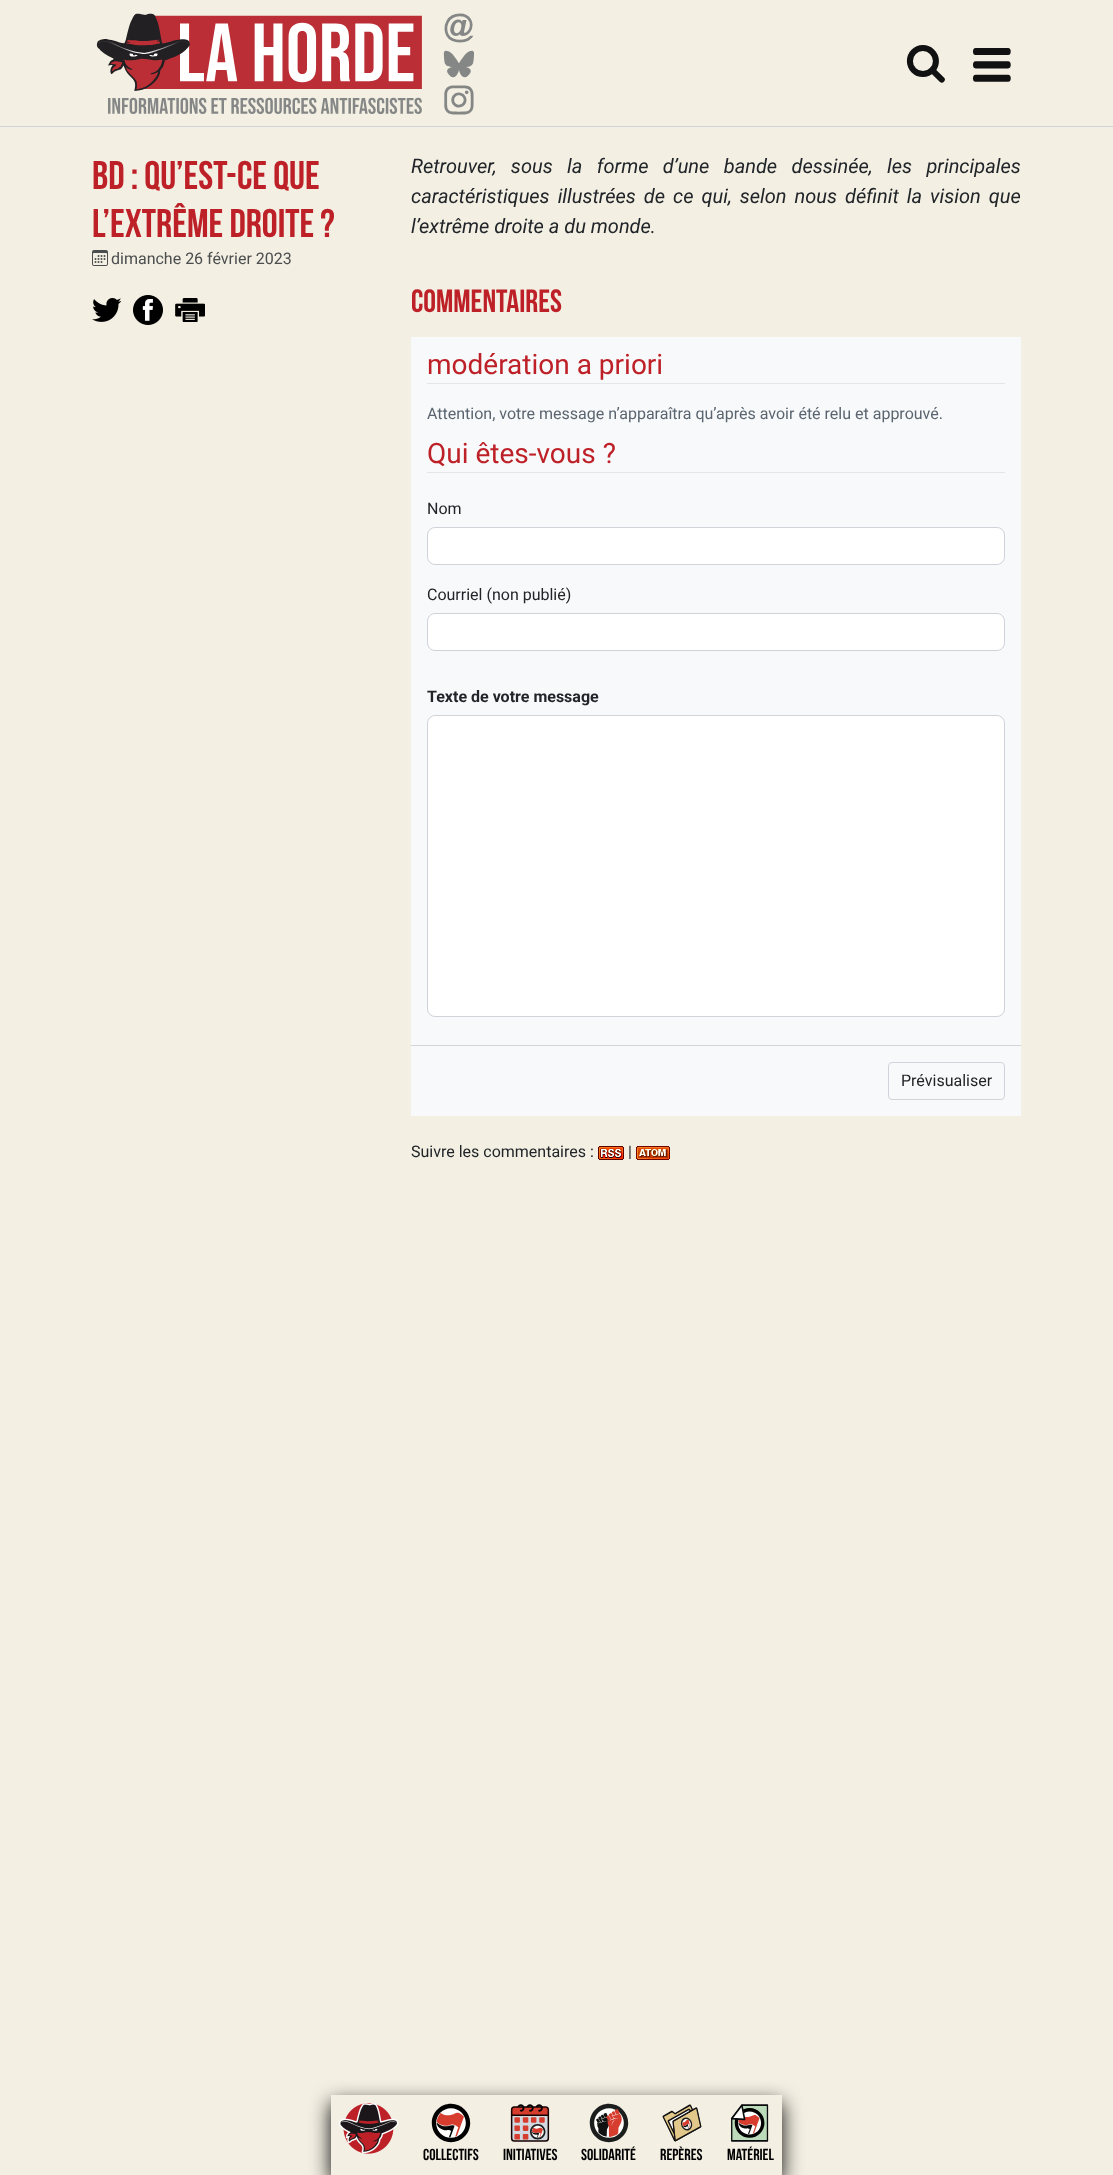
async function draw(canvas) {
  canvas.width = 1113;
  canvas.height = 2175;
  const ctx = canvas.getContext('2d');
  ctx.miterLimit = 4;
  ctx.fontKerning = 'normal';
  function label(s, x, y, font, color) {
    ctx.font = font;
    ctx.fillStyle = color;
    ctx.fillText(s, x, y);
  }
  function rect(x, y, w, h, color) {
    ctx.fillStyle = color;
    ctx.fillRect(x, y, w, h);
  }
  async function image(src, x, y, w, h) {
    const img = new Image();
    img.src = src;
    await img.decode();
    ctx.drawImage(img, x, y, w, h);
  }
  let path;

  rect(0, 0, 1113, 2175, '#f3efe3');
  label('BD : qu’est-ce que', 92, 189, '40px Bebas Neue', '#be2028');
  label('l’extrême droite ?', 92, 237, '40px Bebas Neue', '#be2028');
  await image('assets/img1.png', 92, 250, 16, 16);
  label('dimanche 26 février 2023', 111, 264, '16px Roboto', '#4b4d4e');
  await image('assets/img2.png', 92, 298, 29, 24);
  await image('assets/img3.png', 133, 295, 30, 30);
  await image('assets/img4.png', 175, 298, 30, 24);
  ctx.wordSpacing = '9.5px';
  label('Retrouver, sous la forme d’une bande dessinée, les principales', 411, 173, 'italic 20px Roboto', '#212529');
  ctx.wordSpacing = '3.1px';
  label('caractéristiques illustrées de ce qui, selon nous définit la vision que', 411, 203, 'italic 20px Roboto', '#212529');
  ctx.wordSpacing = '0px';
  label('l’extrême droite a du monde.', 411, 233, 'italic 20px Roboto', '#212529');
  label('Commentaires', 411, 312, '32px Bebas Neue', '#be2028');
  rect(411, 337, 610, 779, '#f8f9fa');
  rect(427, 383, 578, 1, '#e3e7ea');
  label('modération a priori', 427, 374, '28px Roboto', '#be2028');
  label('Attention, votre message n’apparaîtra qu’après avoir été relu et approuvé.', 427, 419, '16px Roboto', '#5a6570');
  rect(427, 472, 578, 1, '#e3e7ea');
  label('Qui êtes-vous ?', 427, 463, '28px Roboto', '#be2028');
  label('Nom', 427, 514, '16px Roboto', '#212529');
  ctx.fillStyle = '#fff';
  ctx.beginPath();
  ctx.roundRect(427.5, 527.5, 577, 37, 7.5);
  ctx.fill();
  ctx.strokeStyle = '#ced4da';
  ctx.stroke();
  label('Courriel (non publié)', 427, 600, '16px Roboto', '#212529');
  ctx.fillStyle = '#fff';
  ctx.beginPath();
  ctx.roundRect(427.5, 613.5, 577, 37, 7.5);
  ctx.fill();
  ctx.stroke();
  label('Texte de votre message', 427, 702, 'bold 16px Roboto', '#212529');
  ctx.fillStyle = '#fff';
  ctx.beginPath();
  ctx.roundRect(427.5, 715.5, 577, 301, 7.5);
  ctx.fill();
  ctx.stroke();
  rect(411, 1045, 610, 1, '#ced4da');
  ctx.beginPath();
  ctx.roundRect(888.5, 1062.5, 116, 37, 3.5);
  ctx.stroke();
  label('Prévisualiser', 901, 1086, '16px Roboto', '#212529');
  label('Suivre les commentaires :', 411, 1157, '16px Roboto', '#212529');
  await image('assets/img5.png', 598, 1146, 26, 14);
  label('|', 628, 1157, '16px Roboto', '#212529');
  await image('assets/img6.png', 636, 1146, 34, 14);
  rect(0, 126, 1113, 1, '#ced4da');
  await image('assets/img7.png', 972, 48, 39, 34);
  await image('assets/img8.png', 96, 13, 326, 101);
  await image('assets/img9.png', 444, 13, 30, 30);
  await image('assets/img10.png', 443, 50, 31, 28);
  await image('assets/img11.png', 444, 85, 30, 30);
  await image('assets/img12.png', 906, 45, 39, 38);
  ctx.save();
  path = new Path2D('M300 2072H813V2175H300ZM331 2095H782V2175H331Z');
  ctx.clip(path, 'evenodd');
  ctx.fillStyle = '#000';
  ctx.filter = 'blur(10px)';
  ctx.beginPath();
  ctx.rect(331, 2103, 451, 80);
  ctx.fill();
  ctx.filter = 'none';
  ctx.restore();
  await image('assets/img13.png', 339, 2103, 60, 51);
  await image('assets/img14.png', 431, 2103, 40, 40);
  label('Collectifs', 423, 2160, '16px Bebas Neue', '#000');
  await image('assets/img15.png', 510, 2104, 40, 38);
  label('Initiatives', 503, 2160, '16px Bebas Neue', '#000');
  await image('assets/img16.png', 589, 2103, 40, 40);
  label('Solidarité', 581, 2160, '16px Bebas Neue', '#000');
  await image('assets/img17.png', 662, 2104, 40, 38);
  label('Repères', 660, 2160, '16px Bebas Neue', '#000');
  await image('assets/img18.png', 730, 2104, 39, 38);
  label('Matériel', 727, 2160, '16px Bebas Neue', '#000');
}

draw(document.querySelector('canvas'));
